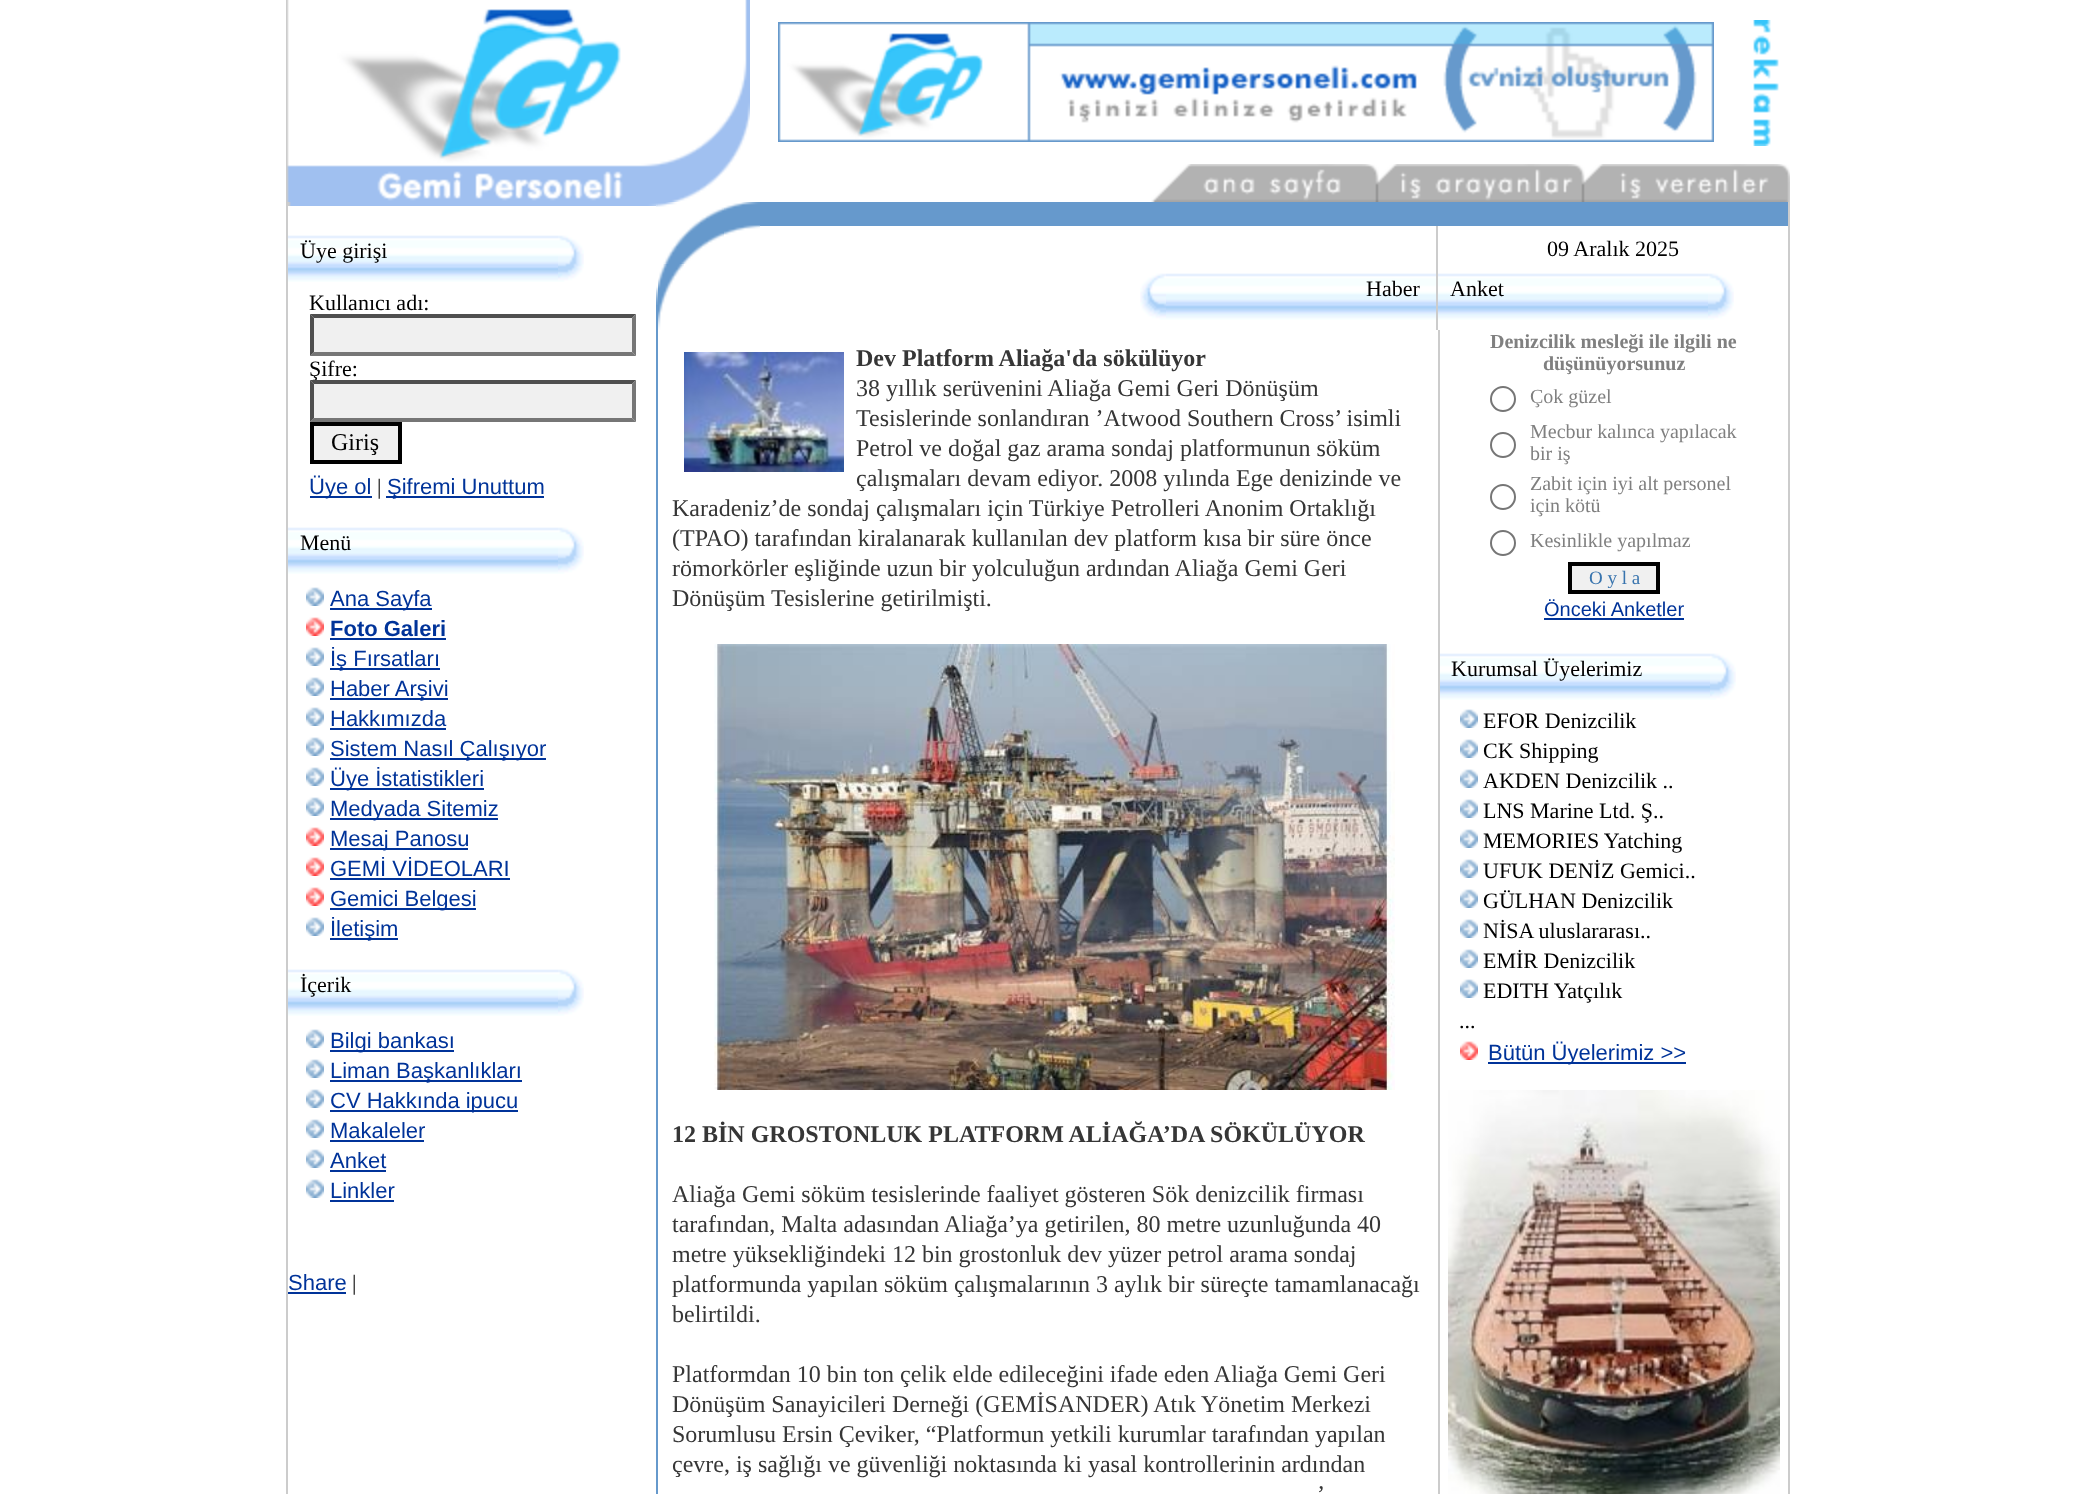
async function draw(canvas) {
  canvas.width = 2075;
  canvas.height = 1494;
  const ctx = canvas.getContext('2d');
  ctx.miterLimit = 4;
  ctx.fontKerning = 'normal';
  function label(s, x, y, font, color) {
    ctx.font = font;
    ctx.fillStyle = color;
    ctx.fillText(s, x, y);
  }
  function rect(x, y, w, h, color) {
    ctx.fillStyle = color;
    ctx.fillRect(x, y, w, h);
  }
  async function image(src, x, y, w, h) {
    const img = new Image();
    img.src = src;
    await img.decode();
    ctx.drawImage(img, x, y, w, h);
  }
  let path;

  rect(0, 0, 2075, 1494, '#fff');
  await image('assets/img1.png', 286, 0, 342, 202);
  await image('assets/img2.png', 628, 0, 122, 202);
  await image('assets/img3.png', 778, 22, 936, 120);
  await image('assets/img4.png', 1753, 20, 26, 126);
  await image('assets/img5.png', 1151, 164, 639, 38);
  rect(286, 202, 2, 1292, '#ccc');
  await image('assets/img6.png', 288, 202, 368, 4);
  await image('assets/img7.png', 288, 235, 270, 47);
  label('Üye girişi', 300, 258, '22px Liberation Serif', '#000');
  await image('assets/img8.png', 558, 235, 26, 47);
  label('Kullanıcı adı:', 309, 310, '22px Liberation Serif', '#000');
  rect(310, 314, 326, 42, '#f0f0f0');
  ctx.fillStyle = '#4f4f4f';
  path = new Path2D('M310 314H636L632 318H314Z');
  ctx.fill(path);
  ctx.fillStyle = '#767676';
  path = new Path2D('M636 314V356L632 352V318Z');
  ctx.fill(path);
  path = new Path2D('M636 356H310L314 352H632Z');
  ctx.fill(path);
  ctx.fillStyle = '#4f4f4f';
  path = new Path2D('M310 356V314L314 318V352Z');
  ctx.fill(path);
  label('Şifre:', 309, 376, '22px Liberation Serif', '#000');
  rect(310, 380, 326, 42, '#f0f0f0');
  ctx.fillStyle = '#4f4f4f';
  path = new Path2D('M310 380H636L632 384H314Z');
  ctx.fill(path);
  ctx.fillStyle = '#767676';
  path = new Path2D('M636 380V422L632 418V384Z');
  ctx.fill(path);
  path = new Path2D('M636 422H310L314 418H632Z');
  ctx.fill(path);
  ctx.fillStyle = '#4f4f4f';
  path = new Path2D('M310 422V380L314 384V418Z');
  ctx.fill(path);
  ctx.fillStyle = '#f0f0f0';
  ctx.beginPath();
  ctx.rect(312, 424, 88, 38);
  ctx.fill();
  ctx.strokeStyle = '#000';
  ctx.lineWidth = 4;
  ctx.stroke();
  label('Giriş', 331, 450, '24px Liberation Serif', '#000');
  rect(310, 496, 62, 2, '#039');
  label('Üye ol', 309, 494, '22px Liberation Sans', '#039');
  label('|', 377, 494, '22px Liberation Serif', '#000');
  rect(386, 496, 158, 2, '#039');
  label('Şifremi Unuttum', 387, 494, '22px Liberation Sans', '#039');
  await image('assets/img7.png', 288, 527, 270, 47);
  label('Menü', 300, 550, '22px Liberation Serif', '#000');
  await image('assets/img8.png', 558, 527, 26, 47);
  await image('assets/img9.png', 306, 587, 18, 19);
  rect(330, 608, 102, 2, '#039');
  label('Ana Sayfa', 330, 606, '22px Liberation Sans', '#039');
  await image('assets/img10.png', 306, 617, 18, 19);
  label('Foto Galeri', 330, 636, 'bold 22px Liberation Sans', '#039');
  rect(330, 638, 116, 2, '#039');
  await image('assets/img9.png', 306, 647, 18, 19);
  rect(330, 668, 110, 2, '#039');
  label('İş Fırsatları', 330, 666, '22px Liberation Sans', '#039');
  await image('assets/img9.png', 306, 677, 18, 19);
  rect(330, 698, 118, 2, '#039');
  label('Haber Arşivi', 330, 696, '22px Liberation Sans', '#039');
  await image('assets/img9.png', 306, 707, 18, 19);
  label('Hakkımızda', 330, 726, '22px Liberation Sans', '#039');
  rect(330, 728, 116, 2, '#039');
  await image('assets/img9.png', 306, 737, 18, 19);
  rect(330, 758, 216, 2, '#039');
  label('Sistem Nasıl Çalışıyor', 330, 756, '22px Liberation Sans', '#039');
  await image('assets/img9.png', 306, 767, 18, 19);
  rect(330, 788, 154, 2, '#039');
  label('Üye İstatistikleri', 330, 786, '22px Liberation Sans', '#039');
  await image('assets/img9.png', 306, 797, 18, 19);
  rect(330, 818, 168, 2, '#039');
  label('Medyada Sitemiz', 330, 816, '22px Liberation Sans', '#039');
  await image('assets/img10.png', 306, 827, 18, 19);
  rect(330, 848, 138, 2, '#039');
  label('Mesaj Panosu', 330, 846, '22px Liberation Sans', '#039');
  await image('assets/img10.png', 306, 857, 18, 19);
  label('GEMİ VİDEOLARI', 330, 876, '22px Liberation Sans', '#039');
  rect(330, 878, 180, 2, '#039');
  await image('assets/img10.png', 306, 887, 18, 19);
  rect(330, 908, 146, 2, '#039');
  label('Gemici Belgesi', 330, 906, '22px Liberation Sans', '#039');
  await image('assets/img9.png', 306, 917, 18, 19);
  rect(330, 938, 68, 2, '#039');
  label('İletişim', 330, 936, '22px Liberation Sans', '#039');
  await image('assets/img7.png', 288, 969, 270, 47);
  label('İçerik', 300, 992, '22px Liberation Serif', '#000');
  await image('assets/img8.png', 558, 969, 26, 47);
  await image('assets/img9.png', 306, 1029, 18, 19);
  rect(330, 1050, 124, 2, '#039');
  label('Bilgi bankası', 330, 1048, '22px Liberation Sans', '#039');
  await image('assets/img9.png', 306, 1059, 18, 19);
  rect(330, 1080, 192, 2, '#039');
  label('Liman Başkanlıkları', 330, 1078, '22px Liberation Sans', '#039');
  await image('assets/img9.png', 306, 1089, 18, 19);
  rect(330, 1110, 188, 2, '#039');
  label('CV Hakkında ipucu', 330, 1108, '22px Liberation Sans', '#039');
  await image('assets/img9.png', 306, 1119, 18, 19);
  label('Makaleler', 330, 1138, '22px Liberation Sans', '#039');
  rect(330, 1140, 94, 2, '#039');
  await image('assets/img9.png', 306, 1149, 18, 19);
  label('Anket', 330, 1168, '22px Liberation Sans', '#039');
  rect(330, 1170, 56, 2, '#039');
  await image('assets/img9.png', 306, 1179, 18, 19);
  label('Linkler', 330, 1198, '22px Liberation Sans', '#039');
  rect(330, 1200, 64, 2, '#039');
  label('Share', 288, 1290, '22px Liberation Sans', '#039');
  rect(288, 1292, 58, 2, '#039');
  label('|', 352, 1290, '22px Liberation Serif', '#000');
  rect(656, 305, 2, 1189, '#69c');
  await image('assets/img11.png', 656, 202, 2, 62);
  await image('assets/img12.png', 656, 264, 2, 41);
  await image('assets/img13.png', 658, 202, 66, 62);
  await image('assets/img14.png', 724, 202, 36, 33);
  rect(760, 202, 1028, 24, '#69c');
  rect(1436, 226, 2, 104, '#ccc');
  label('09 Aralık 2025', 1547, 256, '22px Liberation Serif', '#000');
  await image('assets/img15.png', 658, 264, 26, 66);
  await image('assets/img16.png', 1140, 273, 26, 47);
  await image('assets/img7.png', 1166, 273, 270, 47);
  label('Haber', 1366, 296, '22px Liberation Serif', '#000');
  await image('assets/img7.png', 1438, 273, 270, 47);
  label('Anket', 1450, 296, '22px Liberation Serif', '#000');
  await image('assets/img8.png', 1708, 273, 26, 47);
  await image('assets/img17.png', 684, 352, 160, 120);
  label('Dev Platform Aliağa\'da sökülüyor', 856, 366, 'bold 24px Liberation Serif', '#363636');
  label('38 yıllık serüvenini Aliağa Gemi Geri Dönüşüm', 856, 396, '24px Liberation Serif', '#363636');
  label('Tesislerinde sonlandıran ’Atwood Southern Cross’ isimli', 856, 426, '24px Liberation Serif', '#363636');
  label('Petrol ve doğal gaz arama sondaj platformunun söküm', 856, 456, '24px Liberation Serif', '#363636');
  label('çalışmaları devam ediyor. 2008 yılında Ege denizinde ve', 856, 486, '24px Liberation Serif', '#363636');
  label('Karadeniz’de sondaj çalışmaları için Türkiye Petrolleri Anonim Ortaklığı', 672, 516, '24px Liberation Serif', '#363636');
  label('(TPAO) tarafından kiralanarak kullanılan dev platform kısa bir süre önce', 672, 546, '24px Liberation Serif', '#363636');
  label('römorkörler eşliğinde uzun bir yolculuğun ardından Aliağa Gemi Geri', 672, 576, '24px Liberation Serif', '#363636');
  label('Dönüşüm Tesislerine getirilmişti.', 672, 606, '24px Liberation Serif', '#363636');
  await image('assets/img18.png', 714, 644, 681, 446);
  label('12 BİN GROSTONLUK PLATFORM ALİAĞA’DA SÖKÜLÜYOR', 672, 1142, 'bold 24px Liberation Serif', '#363636');
  label('Aliağa Gemi söküm tesislerinde faaliyet gösteren Sök denizcilik firması', 672, 1202, '24px Liberation Serif', '#363636');
  label('tarafından, Malta adasından Aliağa’ya getirilen, 80 metre uzunluğunda 40', 672, 1232, '24px Liberation Serif', '#363636');
  label('metre yüksekliğindeki 12 bin grostonluk dev yüzer petrol arama sondaj', 672, 1262, '24px Liberation Serif', '#363636');
  label('platformunda yapılan söküm çalışmalarının 3 aylık bir süreçte tamamlanacağı', 672, 1292, '24px Liberation Serif', '#363636');
  label('belirtildi.', 672, 1322, '24px Liberation Serif', '#363636');
  label('Platformdan 10 bin ton çelik elde edileceğini ifade eden Aliağa Gemi Geri', 672, 1382, '24px Liberation Serif', '#363636');
  label('Dönüşüm Sanayicileri Derneği (GEMİSANDER) Atık Yönetim Merkezi', 672, 1412, '24px Liberation Serif', '#363636');
  label('Sorumlusu Ersin Çeviker, “Platformun yetkili kurumlar tarafından yapılan', 672, 1442, '24px Liberation Serif', '#363636');
  label('çevre, iş sağlığı ve güvenliği noktasında ki yasal kontrollerinin ardından', 672, 1472, '24px Liberation Serif', '#363636');
  label('’', 1317, 1502, '24px Liberation Serif', '#363636');
  rect(1438, 330, 2, 1164, '#ccc');
  label('Denizcilik mesleği ile ilgili ne', 1490, 348, 'bold 20px Liberation Serif', '#808080');
  label('düşünüyorsunuz', 1543, 370, 'bold 20px Liberation Serif', '#808080');
  ctx.beginPath();
  ctx.arc(1503, 399, 12, 0, 2 * Math.PI);
  ctx.strokeStyle = '#767676';
  ctx.lineWidth = 2;
  ctx.stroke();
  label('Çok güzel', 1530, 403, '20px Liberation Serif', '#808080');
  ctx.beginPath();
  ctx.arc(1503, 445, 12, 0, 2 * Math.PI);
  ctx.stroke();
  label('Mecbur kalınca yapılacak', 1530, 438, '20px Liberation Serif', '#808080');
  label('bir iş', 1530, 460, '20px Liberation Serif', '#808080');
  ctx.beginPath();
  ctx.arc(1503, 497, 12, 0, 2 * Math.PI);
  ctx.stroke();
  label('Zabit için iyi alt personel', 1530, 490, '20px Liberation Serif', '#808080');
  label('için kötü', 1530, 512, '20px Liberation Serif', '#808080');
  ctx.beginPath();
  ctx.arc(1503, 543, 12, 0, 2 * Math.PI);
  ctx.stroke();
  label('Kesinlikle yapılmaz', 1530, 547, '20px Liberation Serif', '#808080');
  ctx.fillStyle = '#f0f0f0';
  ctx.beginPath();
  ctx.rect(1570, 564, 88, 28);
  ctx.fill();
  ctx.strokeStyle = '#000';
  ctx.lineWidth = 4;
  ctx.stroke();
  label('O y l a', 1589, 584, '19px Liberation Serif', '#3874ae');
  label('Önceki Anketler', 1544, 616, '20px Liberation Sans', '#039');
  rect(1544, 618, 140, 2, '#039');
  await image('assets/img7.png', 1440, 653, 270, 47);
  label('Kurumsal Üyelerimiz', 1451, 676, '22px Liberation Serif', '#000');
  await image('assets/img8.png', 1710, 653, 26, 47);
  await image('assets/img9.png', 1460, 709, 18, 19);
  label('EFOR Denizcilik', 1483, 728, '22px Liberation Serif', '#000');
  await image('assets/img9.png', 1460, 739, 18, 19);
  label('CK Shipping', 1483, 758, '22px Liberation Serif', '#000');
  await image('assets/img9.png', 1460, 769, 18, 19);
  label('AKDEN Denizcilik ..', 1483, 788, '22px Liberation Serif', '#000');
  await image('assets/img9.png', 1460, 799, 18, 19);
  label('LNS Marine Ltd. Ş..', 1483, 818, '22px Liberation Serif', '#000');
  await image('assets/img9.png', 1460, 829, 18, 19);
  label('MEMORIES Yatching', 1483, 848, '22px Liberation Serif', '#000');
  await image('assets/img9.png', 1460, 859, 18, 19);
  label('UFUK DENİZ Gemici..', 1483, 878, '22px Liberation Serif', '#000');
  await image('assets/img9.png', 1460, 889, 18, 19);
  label('GÜLHAN Denizcilik', 1483, 908, '22px Liberation Serif', '#000');
  await image('assets/img9.png', 1460, 919, 18, 19);
  label('NİSA uluslararası..', 1483, 938, '22px Liberation Serif', '#000');
  await image('assets/img9.png', 1460, 949, 18, 19);
  label('EMİR Denizcilik', 1483, 968, '22px Liberation Serif', '#000');
  await image('assets/img9.png', 1460, 979, 18, 19);
  label('EDITH Yatçılık', 1483, 998, '22px Liberation Serif', '#000');
  label('...', 1459, 1028, '22px Liberation Serif', '#000');
  await image('assets/img10.png', 1460, 1041, 18, 19);
  rect(1488, 1062, 198, 2, '#039');
  label('Bütün Üyelerimiz >>', 1488, 1060, '22px Liberation Sans', '#039');
  await image('assets/img19.png', 1448, 1090, 332, 404);
  rect(1788, 202, 2, 1292, '#ccc');
}

draw(document.querySelector('canvas'));
